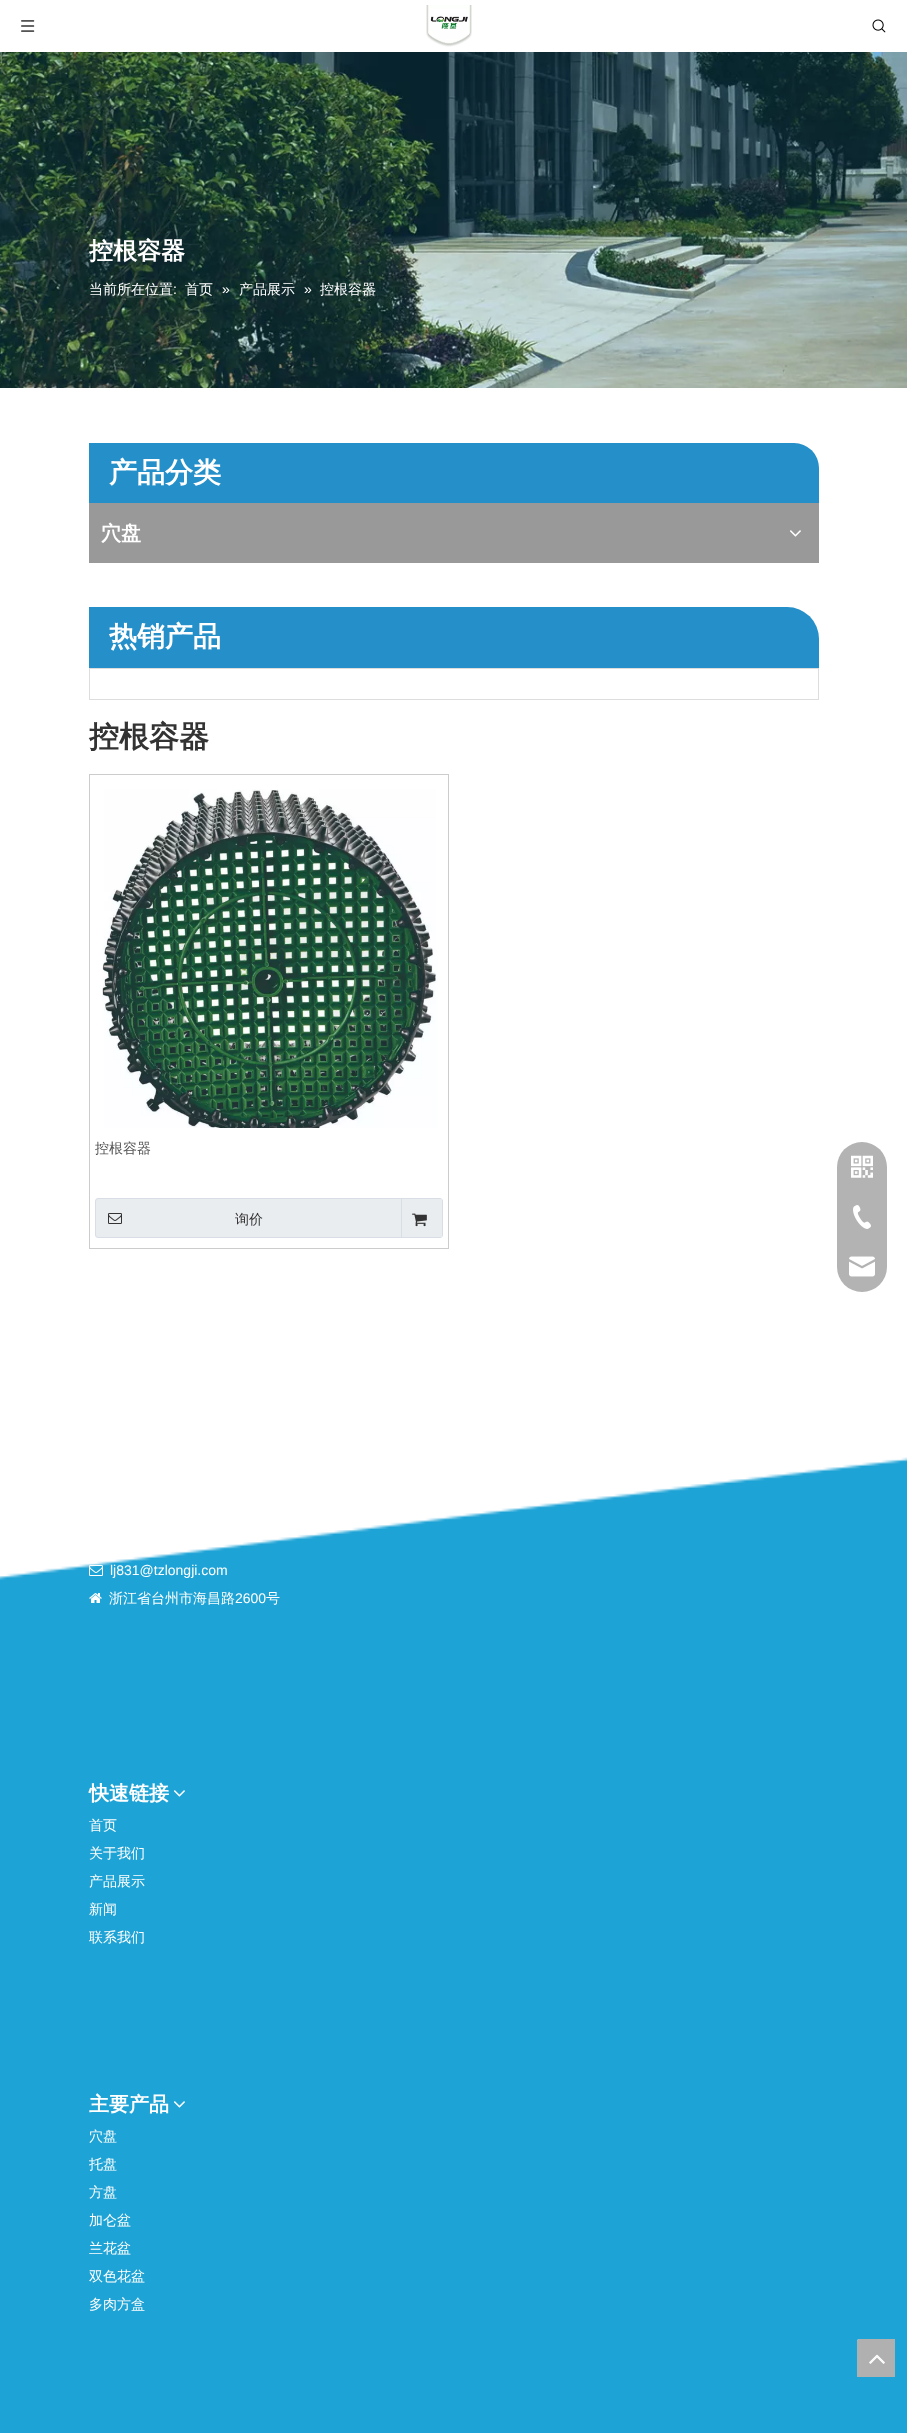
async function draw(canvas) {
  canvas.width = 907;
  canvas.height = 2433;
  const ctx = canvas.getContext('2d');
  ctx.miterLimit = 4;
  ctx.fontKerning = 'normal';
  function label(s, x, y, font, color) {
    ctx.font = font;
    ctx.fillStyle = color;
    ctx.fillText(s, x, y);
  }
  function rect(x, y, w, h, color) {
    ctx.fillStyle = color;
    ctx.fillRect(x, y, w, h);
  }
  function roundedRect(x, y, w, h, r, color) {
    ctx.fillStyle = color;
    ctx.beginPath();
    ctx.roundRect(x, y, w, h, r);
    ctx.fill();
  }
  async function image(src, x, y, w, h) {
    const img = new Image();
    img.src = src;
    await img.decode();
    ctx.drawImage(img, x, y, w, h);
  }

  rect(0, 0, 907, 2433, '#fff');
  await image('assets/img1.png', 21, 20, 14, 12);
  await image('assets/img2.png', 426, 5, 46, 42);
  await image('assets/img3.png', 872, 19, 14, 14);
  await image('assets/img4.png', 0, 52, 907, 336);
  label('控根容器', 89, 259, 'bold 24px WenQuanYi Zen Hei', '#fff');
  label('当前所在位置', 89, 294, '500 14px WenQuanYi Zen Hei', '#fff');
  label(':', 173, 294, '14px Liberation Sans', '#fff');
  label('首页', 185, 294, '500 14px WenQuanYi Zen Hei', '#fff');
  label('»', 222, 294, '14px Liberation Sans', '#fff');
  label('产品展示', 239, 294, '500 14px WenQuanYi Zen Hei', '#fff');
  label('»', 304, 294, '14px Liberation Sans', '#fff');
  label('控根容器', 320, 294, '500 14px WenQuanYi Zen Hei', '#fff');
  ctx.fillStyle = '#248fc8';
  ctx.beginPath();
  ctx.roundRect(89, 443, 730, 60, [0, 25, 0, 0]);
  ctx.fill();
  label('产品分类', 109, 482, 'bold 28px WenQuanYi Zen Hei', '#fff');
  rect(89, 503, 730, 60, '#999');
  label('穴盘', 101, 540, 'bold 20px WenQuanYi Zen Hei', '#fff');
  await image('assets/img5.png', 790, 530, 11, 7);
  ctx.fillStyle = '#248fc8';
  ctx.beginPath();
  ctx.roundRect(89, 607, 730, 61, [0, 32, 0, 0]);
  ctx.fill();
  label('热销产品', 109, 646, 'bold 28px WenQuanYi Zen Hei', '#fff');
  ctx.strokeStyle = '#ddd';
  ctx.strokeRect(89.5, 668.5, 729, 31);
  label('控根容器', 89, 747, 'bold 30px WenQuanYi Zen Hei', '#333');
  ctx.strokeStyle = '#ccc';
  ctx.strokeRect(89.5, 774.5, 359, 474);
  await image('assets/img6.png', 102, 789, 336, 339);
  label('控根容器', 95, 1153, '500 14px WenQuanYi Zen Hei', '#545454');
  ctx.fillStyle = '#eaedef';
  ctx.beginPath();
  ctx.roundRect(95.5, 1198.5, 347, 39, 2.5);
  ctx.fill();
  ctx.strokeStyle = '#d8dde6';
  ctx.stroke();
  await image('assets/img7.png', 108, 1213, 14, 11);
  label('询价', 235, 1224, '500 14px WenQuanYi Zen Hei', '#333');
  rect(441, 1199, 1, 38, '#eaedef');
  rect(401, 1199, 1, 38, '#d8dde6');
  await image('assets/img8.png', 412, 1213, 15, 14);
  await image('assets/img9.png', 0, 1457, 907, 976);
  await image('assets/img10.png', 89, 1565, 14, 11);
  label('lj831@tzlongji.com', 110, 1575, '14px Liberation Sans', '#fff');
  await image('assets/img11.png', 89, 1593, 13, 10);
  label('浙江省台州市海昌路', 109, 1603, '500 14px WenQuanYi Zen Hei', '#fff');
  label('2600', 235, 1603, '14px Liberation Sans', '#fff');
  label('号', 266, 1603, '500 14px WenQuanYi Zen Hei', '#fff');
  roundedRect(837, 1142, 50, 150, 25, '#b3b3b3');
  await image('assets/img12.png', 851, 1155, 22, 23);
  await image('assets/img13.png', 853, 1205, 18, 24);
  await image('assets/img14.png', 849, 1256, 26, 21);
  label('快速链接', 89, 1800, 'bold 20px WenQuanYi Zen Hei', '#fff');
  await image('assets/img15.png', 173, 1790, 12, 7);
  label('首页', 89, 1830, '500 14px WenQuanYi Zen Hei', '#fff');
  label('关于我们', 89, 1858, '500 14px WenQuanYi Zen Hei', '#fff');
  label('产品展示', 89, 1886, '500 14px WenQuanYi Zen Hei', '#fff');
  label('新闻', 89, 1914, '500 14px WenQuanYi Zen Hei', '#fff');
  label('联系我们', 89, 1942, '500 14px WenQuanYi Zen Hei', '#fff');
  label('主要产品', 89, 2111, 'bold 20px WenQuanYi Zen Hei', '#fff');
  await image('assets/img15.png', 173, 2101, 12, 7);
  label('穴盘', 89, 2141, '500 14px WenQuanYi Zen Hei', '#fff');
  label('托盘', 89, 2169, '500 14px WenQuanYi Zen Hei', '#fff');
  label('方盘', 89, 2197, '500 14px WenQuanYi Zen Hei', '#fff');
  label('加仑盆', 89, 2225, '500 14px WenQuanYi Zen Hei', '#fff');
  label('兰花盆', 89, 2253, '500 14px WenQuanYi Zen Hei', '#fff');
  label('双色花盆', 89, 2281, '500 14px WenQuanYi Zen Hei', '#fff');
  label('多肉方盒', 89, 2309, '500 14px WenQuanYi Zen Hei', '#fff');
  await image('assets/img16.png', 857, 2339, 38, 38);
}

draw(document.querySelector('canvas'));
